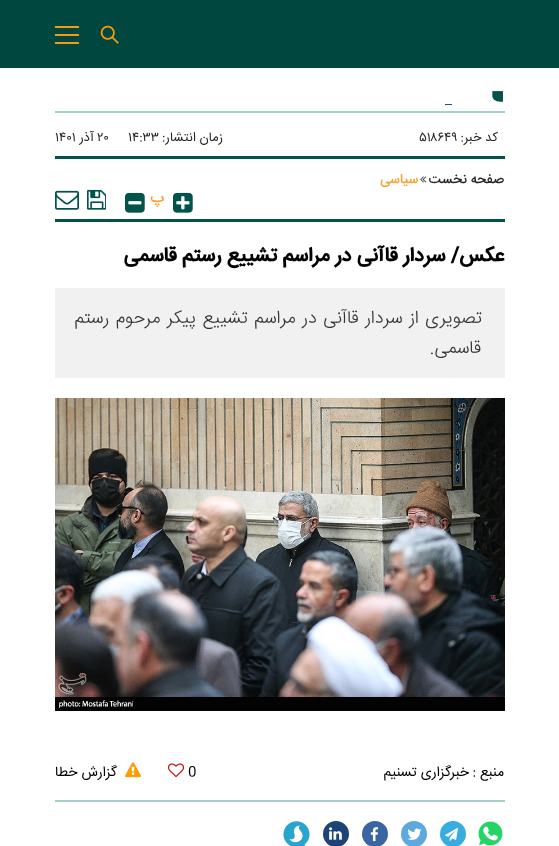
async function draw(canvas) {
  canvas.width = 559;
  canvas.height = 846;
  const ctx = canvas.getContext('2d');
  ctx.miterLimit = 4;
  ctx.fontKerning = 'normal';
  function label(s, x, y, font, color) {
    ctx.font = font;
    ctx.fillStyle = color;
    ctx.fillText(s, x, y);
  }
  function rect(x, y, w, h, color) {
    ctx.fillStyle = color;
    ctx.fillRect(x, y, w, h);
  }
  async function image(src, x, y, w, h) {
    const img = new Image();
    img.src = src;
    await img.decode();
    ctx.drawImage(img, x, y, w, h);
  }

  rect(0, 0, 559, 846, '#fff');
  rect(0, 0, 559, 68, '#00483f');
  await image('assets/img1.png', 100, 25, 19, 19);
  rect(55, 26, 24, 2, '#fc980f');
  rect(55, 34, 24, 2, '#fc980f');
  rect(55, 42, 24, 2, '#fc980f');
  rect(55, 111, 450, 2, '#a6cfcb');
  ctx.save();
  ctx.beginPath();
  ctx.roundRect(491, 83, 14, 19, [0, 0, 0, 9]);
  ctx.clip();
  label('■', 491, 103, '22px Liberation Serif', '#05524a');
  ctx.restore();
  rect(445, 104, 7, 1, '#1f527b');
  rect(55, 156, 450, 3, '#03534a');
  ctx.direction = 'rtl';
  label('کد خبر:', 498, 141, '13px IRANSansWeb', '#272727');
  ctx.direction = 'ltr';
  label('۵۱۸۶۴۹', 419, 141, '13px IRANSansWeb', '#272727');
  ctx.direction = 'rtl';
  label('زمان انتشار:', 223, 141, '13px IRANSansWeb', '#272727');
  ctx.direction = 'ltr';
  label('۱۴:۳۳', 128, 141, '13px IRANSansWeb', '#272727');
  label('۲۰', 97, 141, '13px IRANSansWeb', '#272727');
  ctx.direction = 'rtl';
  label('آذر', 94, 141, '13px IRANSansWeb', '#272727');
  ctx.direction = 'ltr';
  label('۱۴۰۱', 55, 141, '13px IRANSansWeb', '#272727');
  rect(55, 219, 450, 3, '#03534a');
  ctx.direction = 'rtl';
  label('صفحه نخست', 504, 183, '500 13.5px IRANSansWeb', '#272727');
  await image('assets/img2.png', 420, 176, 7, 7);
  label('سیاسی', 418, 183, '500 13.5px IRANSansWeb', '#f7a130');
  await image('assets/img3.png', 173, 192, 20, 21);
  label('پ', 164, 202, '500 16px IRANSansWeb', '#f7a130');
  await image('assets/img4.png', 125, 192, 20, 21);
  await image('assets/img5.png', 87, 189, 19, 21);
  await image('assets/img6.png', 55, 190, 24, 20);
  label('عکس/ سردار قاآنی در مراسم تشییع رستم قاسمی', 504, 261, 'bold 20px IRANSansWeb', '#000');
  rect(55, 288, 450, 90, '#f1f1f1');
  ctx.wordSpacing = '1.5px';
  label('تصویری از سردار قاآنی در مراسم تشییع پیکر مرحوم رستم', 482, 323, '300 18px IRANSansWeb', '#363636');
  ctx.wordSpacing = '0px';
  label('قاسمی.', 481, 353, '300 18px IRANSansWeb', '#363636');
  await image('assets/img7.png', 55, 398, 450, 313);
  rect(55, 800, 450, 2, '#a6cfcb');
  label('منبع :', 504, 776, '14px IRANSansWeb', '#000');
  label('خبرگزاری تسنیم', 469, 776, '14px IRANSansWeb', '#000');
  ctx.direction = 'ltr';
  label('0', 188, 776, '14px IRANSansWeb', '#000');
  await image('assets/img8.png', 168, 763, 16, 15);
  await image('assets/img9.png', 125, 762, 16, 16);
  ctx.direction = 'rtl';
  label('گزارش خطا', 117, 776, '14px IRANSansWeb', '#000');
  await image('assets/img10.png', 478, 821, 25, 25);
  ctx.fillStyle = '#37ace1';
  ctx.beginPath();
  ctx.arc(453, 834, 13, 0, 2 * Math.PI);
  ctx.fill();
  await image('assets/img11.png', 445, 827, 13, 14);
  ctx.fillStyle = '#5da9dd';
  ctx.beginPath();
  ctx.arc(414, 834, 13, 0, 2 * Math.PI);
  ctx.fill();
  await image('assets/img12.png', 407, 828, 15, 12);
  ctx.fillStyle = '#3965a2';
  ctx.beginPath();
  ctx.arc(375, 834, 13, 0, 2 * Math.PI);
  ctx.fill();
  await image('assets/img13.png', 370, 827, 9, 15);
  ctx.fillStyle = '#1c4478';
  ctx.beginPath();
  ctx.arc(336, 834, 13, 0, 2 * Math.PI);
  ctx.fill();
  await image('assets/img14.png', 329, 827, 13, 13);
  await image('assets/img15.png', 283, 821, 27, 25);
}

draw(document.querySelector('canvas'));
